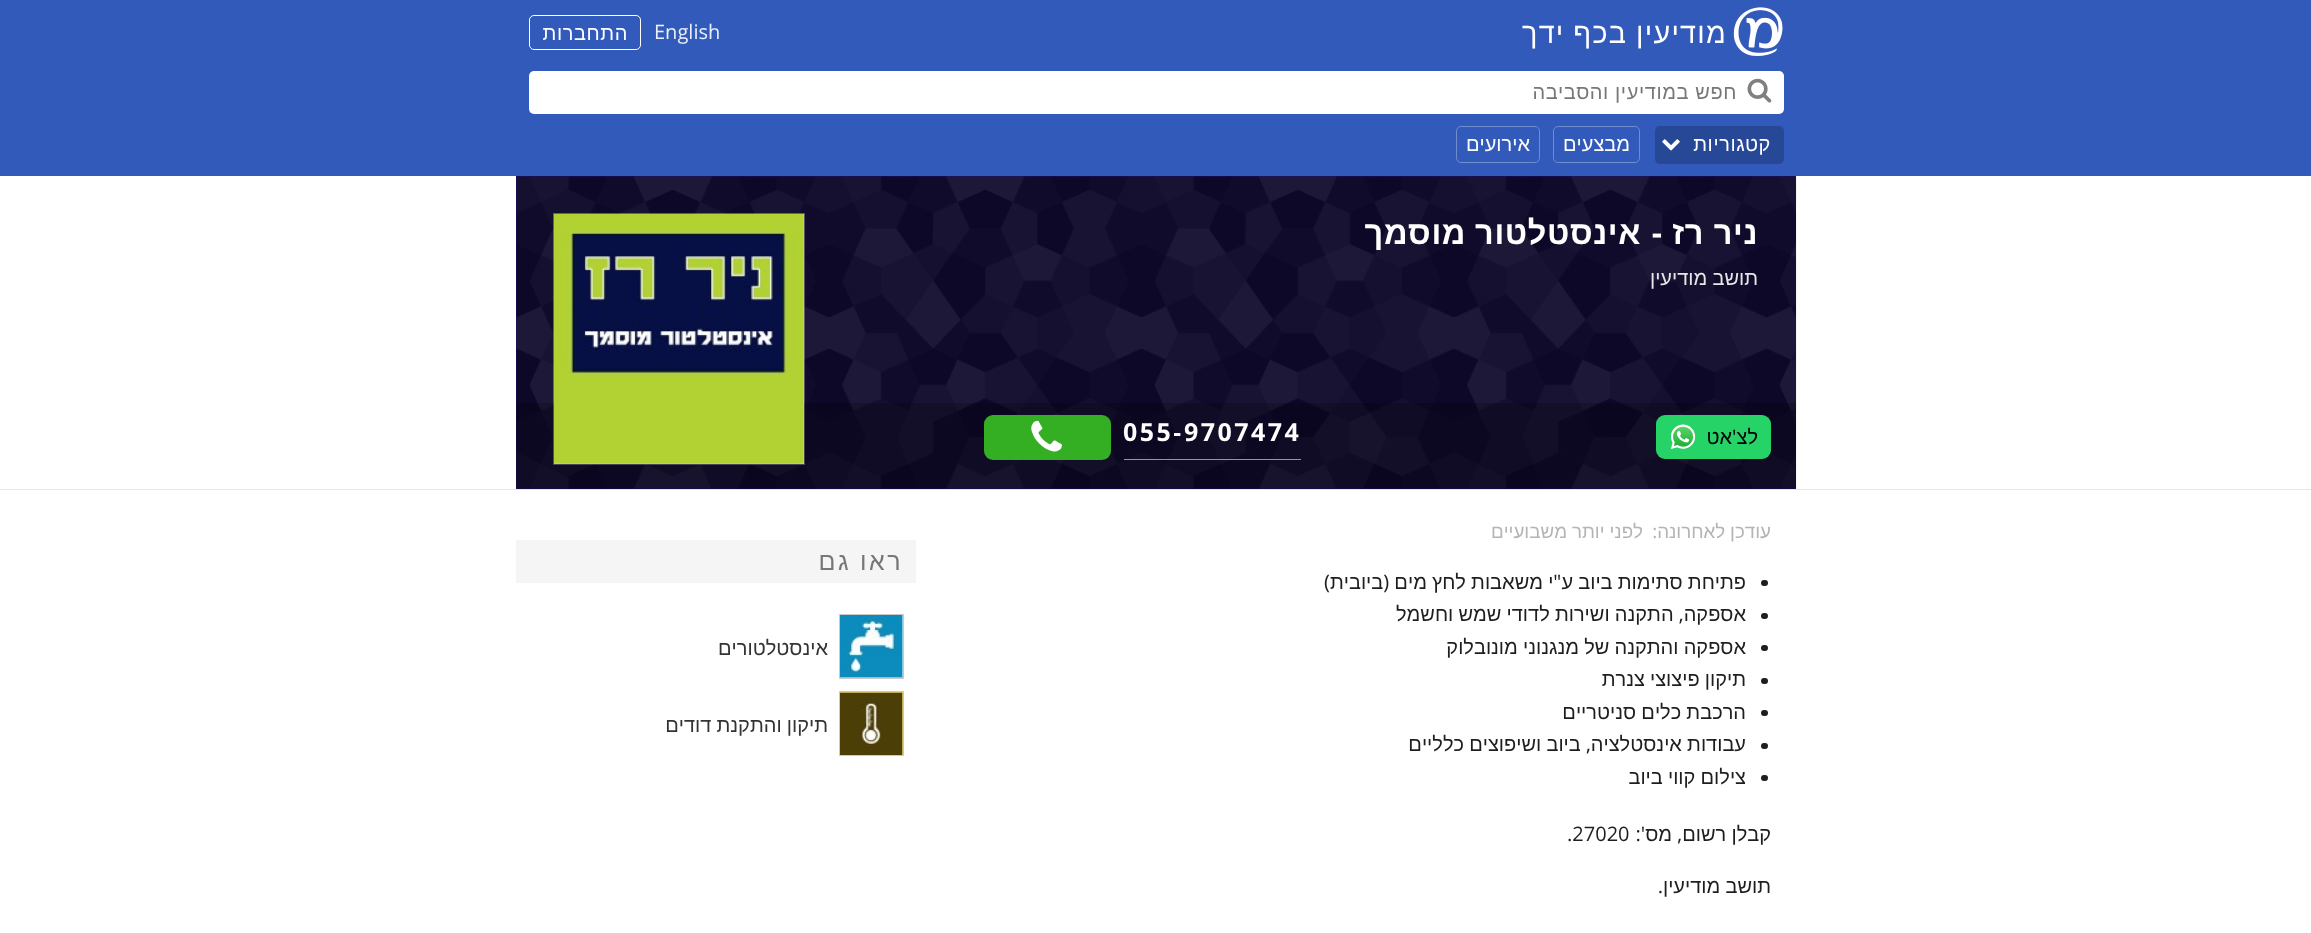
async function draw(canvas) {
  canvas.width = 2311;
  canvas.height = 933;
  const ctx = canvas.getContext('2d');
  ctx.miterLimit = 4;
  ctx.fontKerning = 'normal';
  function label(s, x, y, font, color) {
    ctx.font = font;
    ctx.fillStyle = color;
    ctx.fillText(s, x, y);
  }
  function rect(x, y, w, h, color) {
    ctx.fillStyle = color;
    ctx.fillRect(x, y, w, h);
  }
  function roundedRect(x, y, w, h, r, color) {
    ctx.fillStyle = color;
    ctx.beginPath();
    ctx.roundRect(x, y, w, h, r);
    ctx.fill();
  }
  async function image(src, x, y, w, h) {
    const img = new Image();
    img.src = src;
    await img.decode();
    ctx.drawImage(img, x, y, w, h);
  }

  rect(0, 0, 2311, 933, '#fff');
  rect(0, 0, 2311, 176, '#315abb');
  await image('assets/img1.png', 1733, 7, 50, 49);
  ctx.letterSpacing = '1.25px';
  ctx.direction = 'rtl';
  label('מודיעין בכף ידך', 1727, 43, '28.75px Arimo', '#fff');
  ctx.letterSpacing = '0px';
  ctx.direction = 'ltr';
  label('English', 654, 39, '20px Arimo', '#eaeff8');
  ctx.beginPath();
  ctx.roundRect(529.5, 15.5, 111, 34, 4.5);
  ctx.strokeStyle = '#fff';
  ctx.stroke();
  ctx.letterSpacing = '0.6px';
  ctx.direction = 'rtl';
  label('התחברות', 628, 40, '20px Arimo', '#fff');
  roundedRect(529, 71, 1255, 43, 5, '#fff');
  await image('assets/img2.png', 1747, 78, 25, 25);
  label('חפש במודיעין והסביבה', 1737, 99, '20px Liberation Sans', '#777');
  roundedRect(1655, 126, 129, 38, 5, '#274896');
  label('קטגוריות', 1771, 151, '20px Liberation Sans', '#fff');
  await image('assets/img3.png', 1662, 139, 18, 12);
  ctx.beginPath();
  ctx.roundRect(1553.5, 126.5, 86, 36, 4.5);
  ctx.strokeStyle = '#6f8ccf';
  ctx.stroke();
  ctx.letterSpacing = '0px';
  label('מבצעים', 1630, 151, '20px Arimo', '#fff');
  ctx.beginPath();
  ctx.roundRect(1456.5, 126.5, 83, 36, 4.5);
  ctx.stroke();
  label('אירועים', 1530, 151, '20px Arimo', '#fff');
  rect(0, 489, 2311, 1, '#e6e6e6');
  rect(516, 176, 1280, 313, '#1f0e76');
  await image('assets/img4.png', 516, 176, 1281, 313);
  ctx.letterSpacing = '0.6px';
  label('ניר', 1758, 244, 'bold 32.5px Arimo', '#fff');
  label('רז', 1704, 244, 'bold 32.5px Arimo', '#fff');
  label('-', 1663, 244, 'bold 32.5px Liberation Sans', '#fff');
  label('אינסטלטור', 1641, 244, 'bold 32.5px Arimo', '#fff');
  label('מוסמך', 1466, 244, 'bold 32.5px Arimo', '#fff');
  ctx.letterSpacing = '0px';
  label('תושב מודיעין', 1758, 285, '20px Arimo', '#e6e6e6');
  ctx.strokeStyle = '#ffffff4d';
  ctx.strokeRect(553.5, 213.5, 251, 251);
  rect(516, 403, 1280, 86, '#00000033');
  rect(554, 214, 250, 250, '#efefef');
  await image('assets/img5.png', 553, 213, 251, 251);
  await image('assets/img6.png', 553, 213, 251, 251);
  roundedRect(1656, 415, 115, 44, 9, '#25d366');
  label('לצ\'אט', 1758, 444, '20px Arimo', '#000');
  await image('assets/img7.png', 1671, 424, 25, 25);
  rect(1124, 459, 177, 1, '#969696');
  ctx.letterSpacing = '2.5px';
  ctx.direction = 'ltr';
  label('9707474', 1184, 441, 'bold 25px Arimo', '#fff');
  label('-', 1173, 441, 'bold 25px Liberation Sans', '#fff');
  label('055', 1123, 441, 'bold 25px Arimo', '#fff');
  roundedRect(984, 415, 127, 45, 9, '#34af23');
  await image('assets/img8.png', 1031, 420, 31, 32);
  ctx.letterSpacing = '0px';
  ctx.direction = 'rtl';
  label('עודכן לאחרונה:', 1771, 538, '18.75px Arimo', '#b4b4b4');
  label('לפני יותר משבועיים', 1643, 538, '18.75px Arimo', '#b4b4b4');
  roundedRect(1761, 580, 7, 6, 3, '#1e1e1e');
  label('פתיחת סתימות ביוב ע"י משאבות לחץ מים (ביובית)', 1746, 589, '20px Arimo', '#1e1e1e');
  roundedRect(1761, 613, 7, 6, 3, '#1e1e1e');
  label('אספקה, התקנה ושירות לדודי שמש וחשמל', 1746, 621, '20px Arimo', '#1e1e1e');
  roundedRect(1761, 645, 7, 6, 3, '#1e1e1e');
  label('אספקה והתקנה של מנגנוני מונובלוק', 1746, 654, '20px Arimo', '#1e1e1e');
  roundedRect(1761, 678, 7, 6, 3, '#1e1e1e');
  label('תיקון פיצוצי צנרת', 1746, 686, '20px Arimo', '#1e1e1e');
  roundedRect(1761, 710, 7, 6, 3, '#1e1e1e');
  label('הרכבת כלים סניטריים', 1746, 719, '20px Arimo', '#1e1e1e');
  roundedRect(1761, 743, 7, 6, 3, '#1e1e1e');
  label('עבודות אינסטלציה, ביוב ושיפוצים כלליים', 1746, 751, '20px Arimo', '#1e1e1e');
  roundedRect(1761, 775, 7, 6, 3, '#1e1e1e');
  label('צילום קווי ביוב', 1746, 784, '20px Arimo', '#1e1e1e');
  label('קבלן רשום, מס\':', 1771, 841, '20px Arimo', '#1e1e1e');
  ctx.direction = 'ltr';
  label('.27020', 1567, 841, '20px Arimo', '#1e1e1e');
  ctx.direction = 'rtl';
  label('תושב מודיעין.', 1771, 893, '20px Arimo', '#1e1e1e');
  rect(516, 540, 400, 43, '#f5f5f5');
  ctx.letterSpacing = '2.5px';
  label('ראו גם', 903, 570, '25px Arimo', '#777');
  ctx.fillStyle = '#9acfe3';
  ctx.beginPath();
  ctx.rect(839.5, 614.5, 64, 64);
  ctx.fill();
  ctx.strokeStyle = '#c8c8c8';
  ctx.stroke();
  await image('assets/img9.png', 840, 615, 63, 63);
  ctx.letterSpacing = '0px';
  label('אינסטלטורים', 828, 655, '20px Arimo', '#333');
  ctx.fillStyle = '#d3be63';
  ctx.beginPath();
  ctx.rect(839.5, 691.5, 64, 64);
  ctx.fill();
  ctx.stroke();
  await image('assets/img10.png', 840, 692, 63, 63);
  label('תיקון והתקנת דודים', 828, 732, '20px Arimo', '#333');
}

draw(document.querySelector('canvas'));
